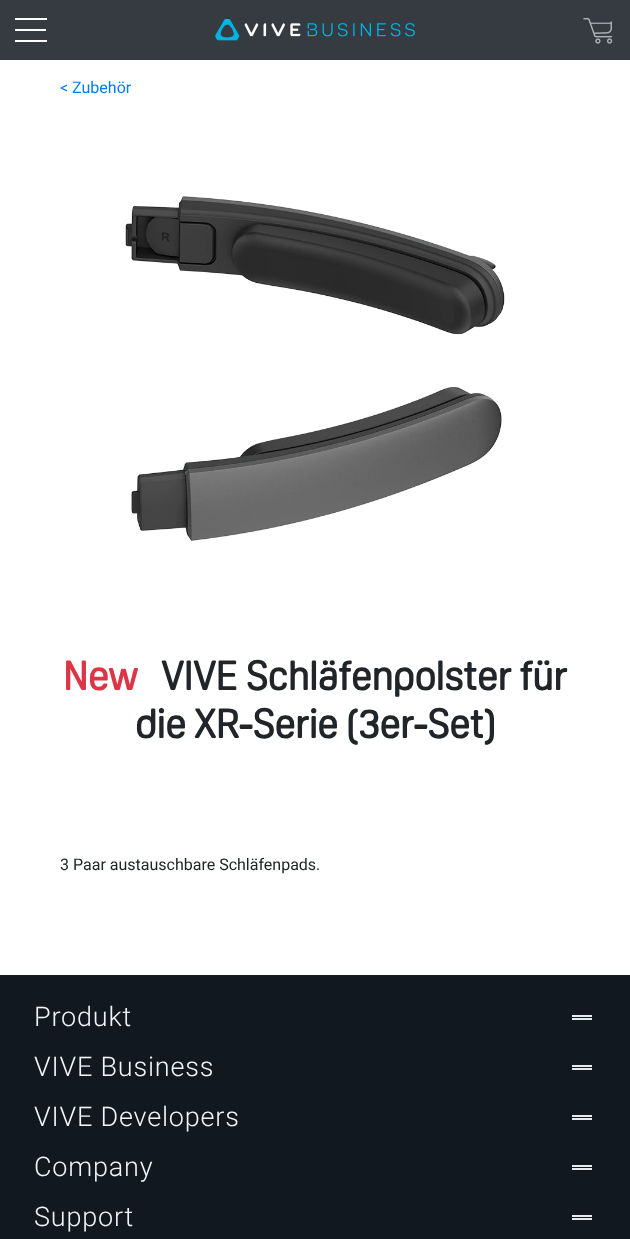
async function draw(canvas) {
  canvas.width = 630;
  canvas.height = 1239;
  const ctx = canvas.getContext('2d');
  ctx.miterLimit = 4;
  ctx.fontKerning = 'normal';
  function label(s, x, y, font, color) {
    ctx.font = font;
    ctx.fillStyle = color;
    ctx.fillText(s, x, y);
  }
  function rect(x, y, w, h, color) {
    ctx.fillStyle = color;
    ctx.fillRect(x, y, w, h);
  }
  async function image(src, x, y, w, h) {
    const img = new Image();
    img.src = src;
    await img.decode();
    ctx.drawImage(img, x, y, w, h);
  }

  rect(0, 0, 630, 1239, '#fff');
  rect(0, 0, 630, 60, '#353b41');
  rect(15, 29, 31, 2, '#fff');
  rect(15, 18, 32, 2, '#fff');
  rect(15, 40, 32, 2, '#fff');
  await image('assets/img1.png', 215, 19, 200, 22);
  await image('assets/img2.png', 583, 18, 30, 26);
  label('< Zubehör', 60, 93, '16px Roboto', '#007bff');
  await image('assets/img3.png', 125, 196, 380, 345);
  label('New', 63, 690, 'bold 40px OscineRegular', '#dc3545');
  label('VIVE Schläfenpolster für', 161, 690, 'bold 40px OscineRegular', '#212529');
  label('die XR-Serie (3er-Set)', 135, 738, 'bold 40px OscineRegular', '#212529');
  label('3 Paar austauschbare Schläfenpads.', 60, 870, '16px Roboto', '#212529');
  rect(0, 975, 630, 264, '#111820');
  ctx.letterSpacing = '0.8px';
  label('Produkt', 34, 1026, '300 27px Roboto', '#f2f4f8');
  rect(572, 1015, 20, 2, '#e7eaf0');
  rect(572, 1018, 20, 2, '#e7eaf0');
  label('VIVE Business', 34, 1076, '300 27px Roboto', '#f2f4f8');
  rect(572, 1065, 20, 2, '#e7eaf0');
  rect(572, 1068, 20, 2, '#e7eaf0');
  label('VIVE Developers', 34, 1126, '300 27px Roboto', '#f2f4f8');
  rect(572, 1115, 20, 2, '#e7eaf0');
  rect(572, 1118, 20, 2, '#e7eaf0');
  label('Company', 34, 1176, '300 27px Roboto', '#f2f4f8');
  rect(572, 1165, 20, 2, '#e7eaf0');
  rect(572, 1168, 20, 2, '#e7eaf0');
  label('Support', 34, 1226, '300 27px Roboto', '#f2f4f8');
  rect(572, 1215, 20, 2, '#e7eaf0');
  rect(572, 1218, 20, 2, '#e7eaf0');
}

draw(document.querySelector('canvas'));
